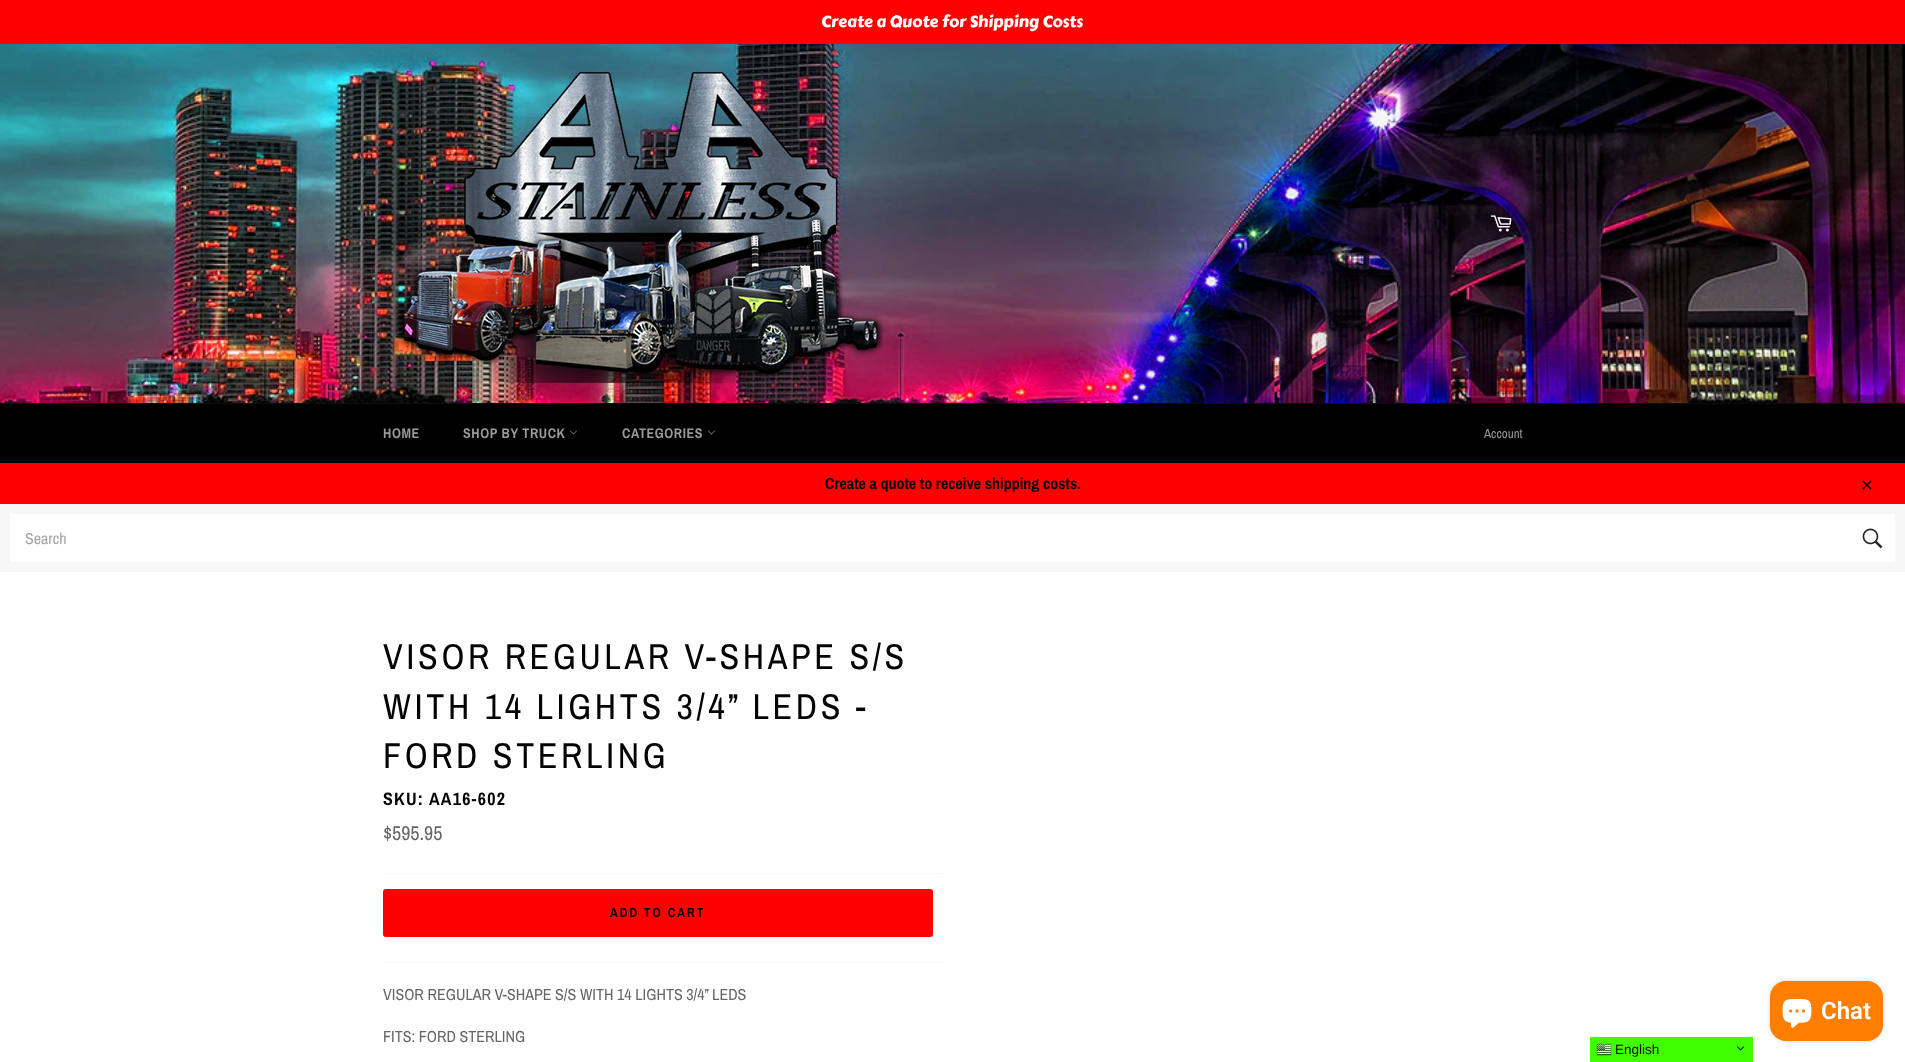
async function draw(canvas) {
  canvas.width = 1905;
  canvas.height = 1062;
  const ctx = canvas.getContext('2d');
  ctx.miterLimit = 4;
  ctx.fontKerning = 'normal';
  function label(s, x, y, font, color) {
    ctx.font = font;
    ctx.fillStyle = color;
    ctx.fillText(s, x, y);
  }
  function rect(x, y, w, h, color) {
    ctx.fillStyle = color;
    ctx.fillRect(x, y, w, h);
  }
  function roundedRect(x, y, w, h, r, color) {
    ctx.fillStyle = color;
    ctx.beginPath();
    ctx.roundRect(x, y, w, h, r);
    ctx.fill();
  }
  async function image(src, x, y, w, h) {
    const img = new Image();
    img.src = src;
    await img.decode();
    ctx.drawImage(img, x, y, w, h);
  }

  rect(0, 0, 1905, 1062, '#fff');
  await image('assets/img1.png', 0, 44, 1905, 359);
  rect(0, 0, 1905, 44, '#f00');
  label('Create a Quote for Shipping Costs', 821, 27, '16px Carter One', '#fff');
  await image('assets/img2.png', 397, 72, 487, 311);
  await image('assets/img3.png', 1490, 215, 22, 17);
  rect(0, 404, 1905, 59, '#000');
  rect(0, 403, 1905, 1, '#0d0d0d');
  ctx.letterSpacing = '0.6px';
  label('HOME', 383, 438, 'bold 14px Archivo Narrow', '#999');
  label('SHOP BY TRUCK', 463, 438, 'bold 14px Archivo Narrow', '#999');
  await image('assets/img4.png', 570, 430, 7, 5);
  label('CATEGORIES', 622, 438, 'bold 14px Archivo Narrow', '#999');
  await image('assets/img4.png', 708, 430, 7, 5);
  ctx.letterSpacing = '0px';
  label('Account', 1484, 438, '13px Archivo Narrow', '#999');
  rect(0, 463, 1905, 41, '#f00');
  label('Create a quote to receive shipping costs.', 825, 489, 'bold 16px Archivo Narrow', '#030303');
  await image('assets/img5.png', 1862, 480, 10, 10);
  rect(0, 504, 1905, 68, '#f7f7f7');
  rect(10, 514, 1885, 48, '#fff');
  label('Search', 25, 544, '16px Archivo Narrow', '#a3a3a3');
  await image('assets/img6.png', 1862, 528, 21, 21);
  ctx.letterSpacing = '3.6px';
  label('VISOR REGULAR V-SHAPE S/S', 383, 669, '36px Archivo Narrow', '#030303');
  label('WITH 14 LIGHTS 3/4” LEDS -', 383, 719, '36px Archivo Narrow', '#030303');
  label('FORD STERLING', 383, 768, '36px Archivo Narrow', '#030303');
  ctx.letterSpacing = '1.25px';
  label('SKU: AA16-602', 383, 805, 'bold 18px Archivo Narrow', '#030303');
  ctx.letterSpacing = '0px';
  label('$595.95', 383, 840, '20px Archivo Narrow', '#666');
  rect(383, 873, 560, 1, '#f7f7f7');
  roundedRect(383, 889, 550, 48, 3, '#f00');
  ctx.letterSpacing = '2px';
  label('ADD TO CART', 610, 917, 'bold 13px Archivo Narrow', '#030303');
  rect(383, 962, 560, 1, '#f7f7f7');
  ctx.letterSpacing = '0px';
  label('VISOR REGULAR V-SHAPE S/S WITH 14 LIGHTS 3/4” LEDS', 383, 1000, '16px Archivo Narrow', '#666');
  label('FITS: FORD STERLING', 383, 1042, '16px Archivo Narrow', '#666');
  ctx.fillStyle = '#00000026';
  ctx.filter = 'blur(2.5px)';
  ctx.beginPath();
  ctx.roundRect(1770, 981, 113, 60, 16);
  ctx.fill();
  ctx.filter = 'none';
  roundedRect(1770, 981, 113, 60, 16, '#ff7e00');
  await image('assets/img7.png', 1782, 999, 30, 29);
  label('Chat', 1821, 1019, '600 24px Roboto', '#fff');
  rect(1590, 1037, 163, 25, '#41ff00');
  await image('assets/img8.png', 1596, 1043, 16, 14);
  label('English', 1615, 1054, '13.5px Liberation Sans', '#030303');
  await image('assets/img9.png', 1737, 1046, 7, 5);
}

draw(document.querySelector('canvas'));
